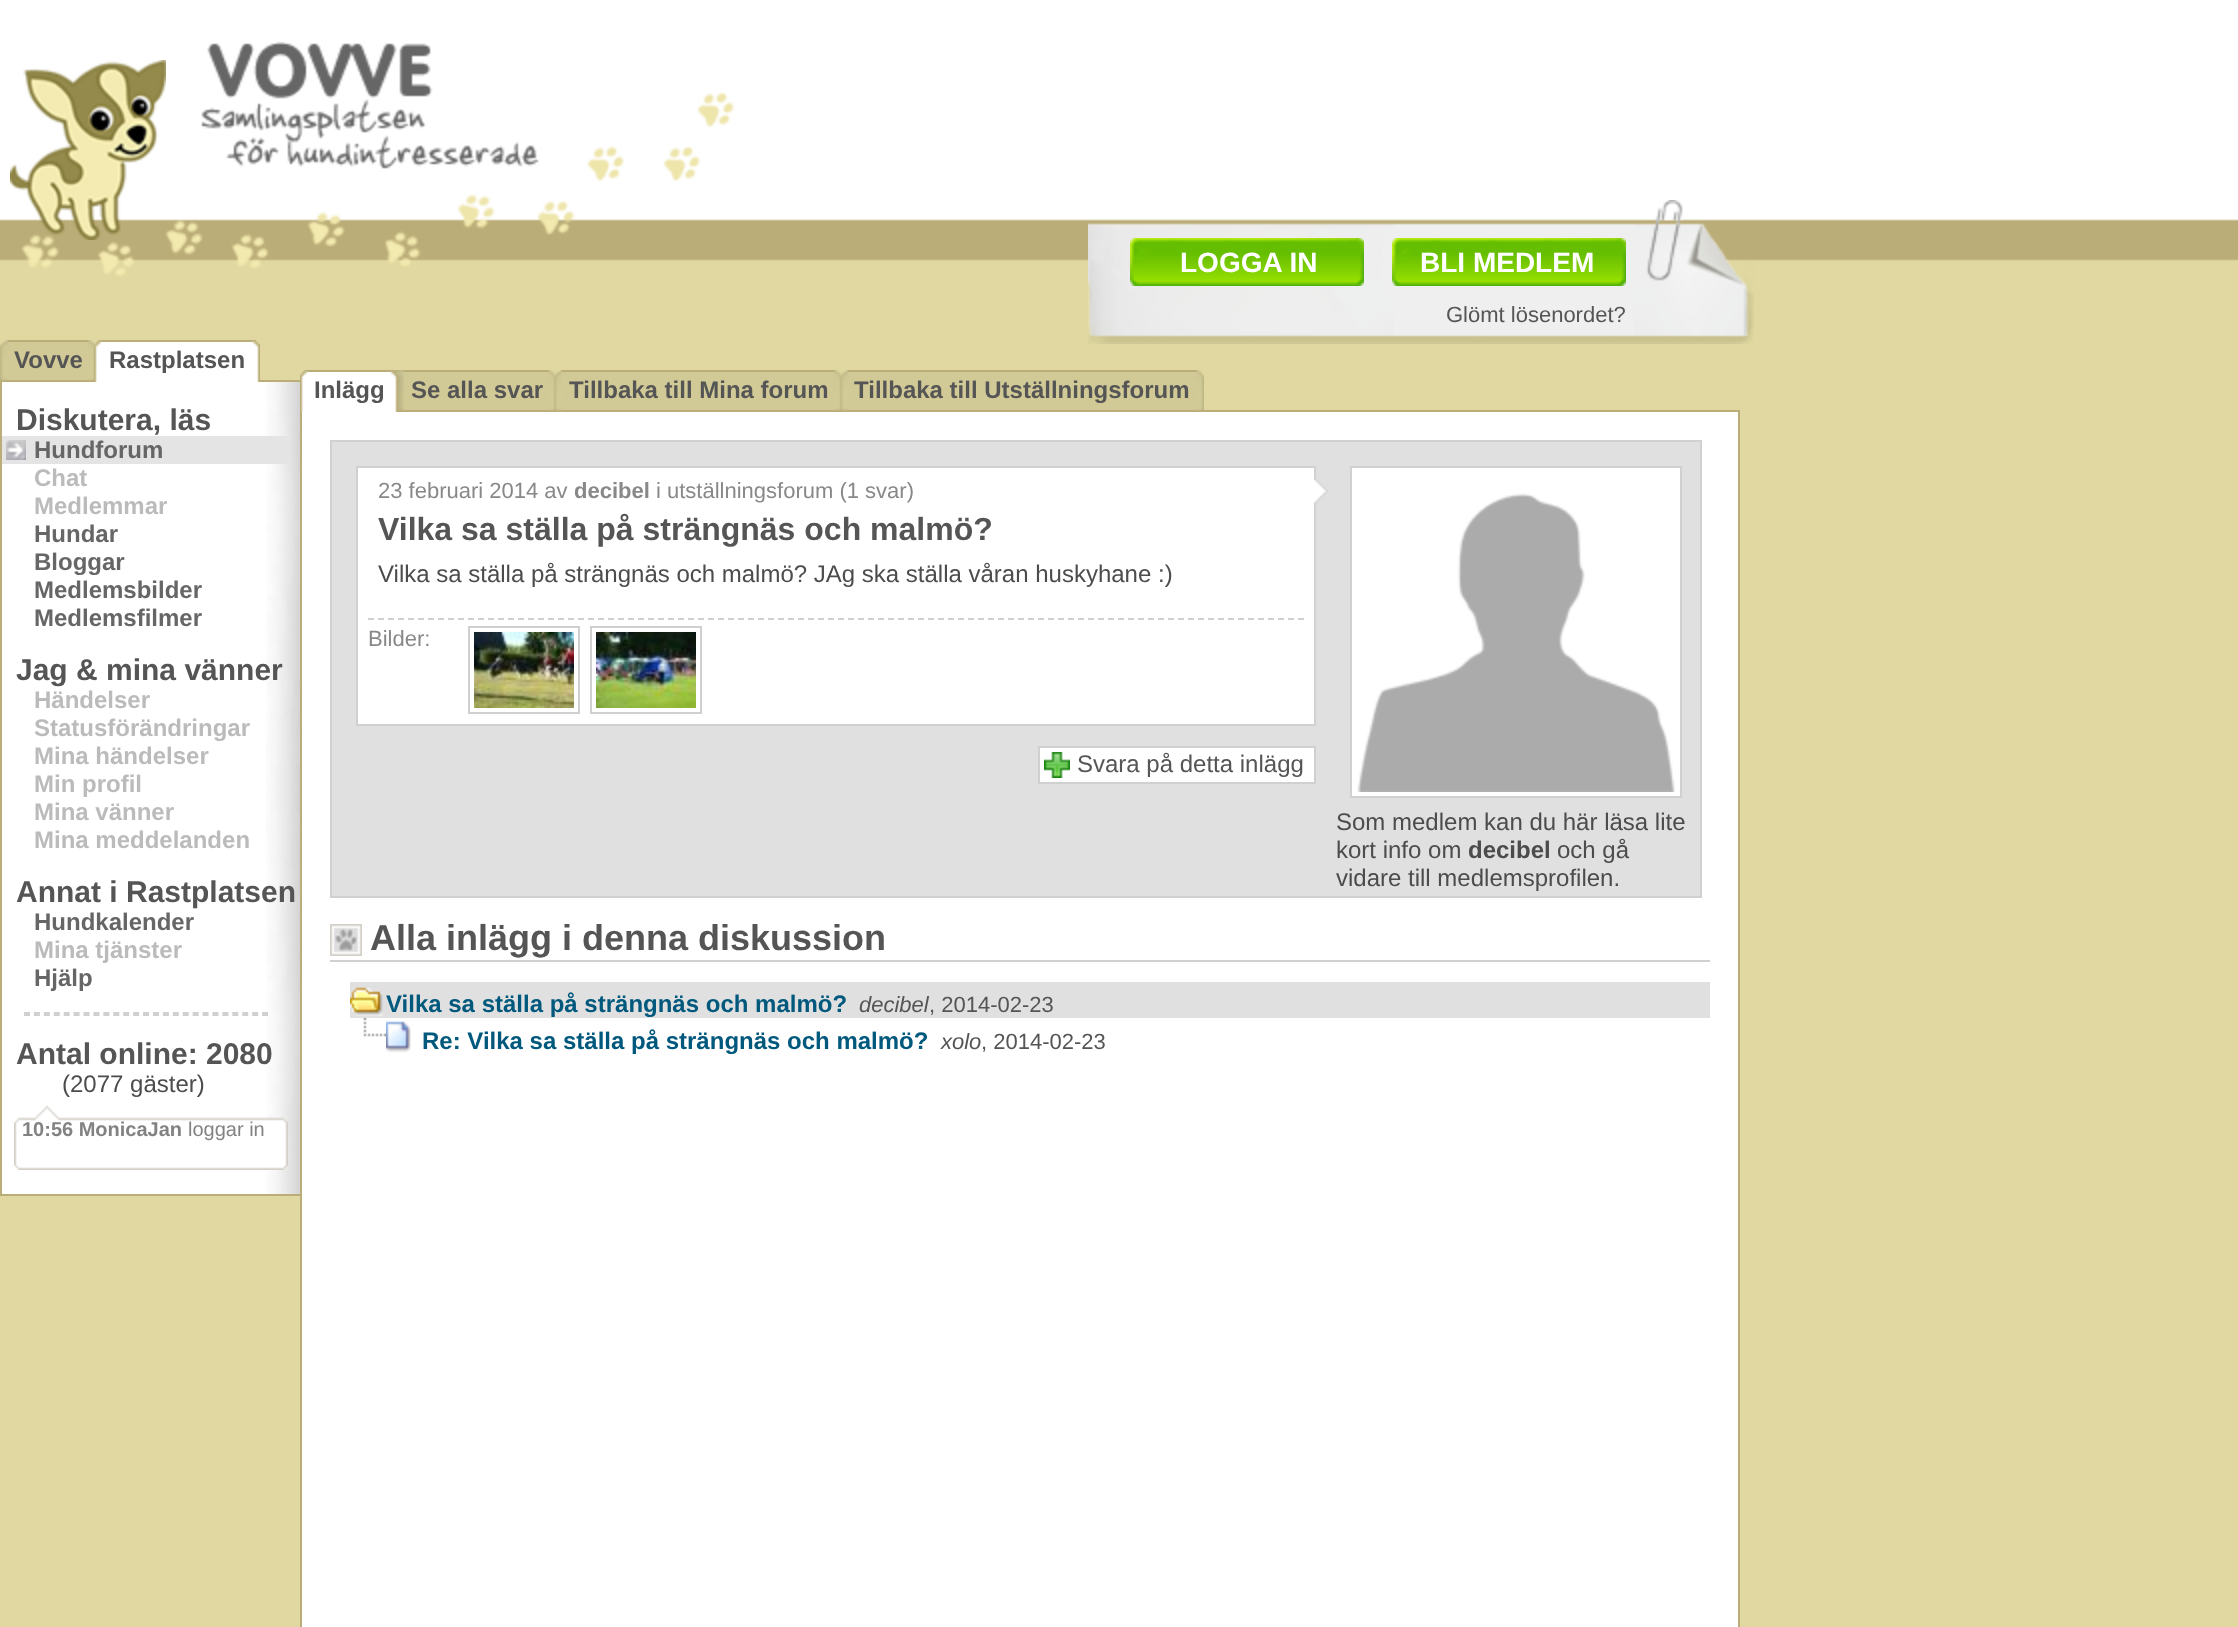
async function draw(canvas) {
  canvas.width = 2238;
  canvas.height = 1627;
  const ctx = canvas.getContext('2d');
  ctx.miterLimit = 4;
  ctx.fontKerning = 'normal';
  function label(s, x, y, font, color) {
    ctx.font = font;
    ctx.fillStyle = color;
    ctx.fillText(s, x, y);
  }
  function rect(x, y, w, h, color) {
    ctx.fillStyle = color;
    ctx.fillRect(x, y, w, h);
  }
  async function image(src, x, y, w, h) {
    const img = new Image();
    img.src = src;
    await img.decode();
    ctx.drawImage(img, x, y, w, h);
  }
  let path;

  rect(0, 0, 2238, 1627, '#e0d8a0');
  await image('assets/img1.png', 0, 0, 2238, 277);
  await image('assets/img2.png', 10, 60, 156, 180);
  await image('assets/img3.png', 201, 42, 338, 127);
  await image('assets/img4.png', 1088, 200, 666, 144);
  await image('assets/img5.png', 1130, 238, 234, 48);
  label('LOGGA IN', 1180, 272, 'bold 28px Liberation Sans', '#fff');
  await image('assets/img6.png', 1392, 238, 234, 48);
  label('BLI MEDLEM', 1420, 272, 'bold 28px Liberation Sans', '#fff');
  label('Glömt lösenordet?', 1446, 322, '22px Liberation Sans', '#555');
  rect(0, 380, 300, 2, '#bbad77');
  await image('assets/img7.png', 0, 340, 8, 41);
  rect(8, 342, 80, 38, '#d2ca96');
  rect(8, 340, 80, 2, '#bbad77');
  label('Vovve', 14, 368, 'bold 24px Liberation Sans', '#555');
  await image('assets/img8.png', 88, 340, 14, 42);
  rect(102, 342, 150, 40, '#fff');
  rect(102, 340, 150, 2, '#bbad77');
  label('Rastplatsen', 109, 368, 'bold 24px Liberation Sans', '#555');
  await image('assets/img9.png', 252, 340, 8, 42);
  rect(2, 382, 264, 812, '#fff');
  await image('assets/img10.png', 266, 382, 34, 812);
  rect(0, 1194, 302, 2, '#bbad77');
  rect(0, 382, 2, 814, '#bbad77');
  label('Diskutera, läs', 16, 430, 'bold 30px Liberation Sans', '#555');
  rect(2, 436, 286, 28, '#e4e4e4');
  await image('assets/img11.png', 6, 440, 20, 20);
  label('Hundforum', 34, 458, 'bold 24px Liberation Sans', '#666');
  label('Chat', 34, 486, 'bold 24px Liberation Sans', '#bbb');
  label('Medlemmar', 34, 514, 'bold 24px Liberation Sans', '#bbb');
  label('Hundar', 34, 542, 'bold 24px Liberation Sans', '#666');
  label('Bloggar', 34, 570, 'bold 24px Liberation Sans', '#666');
  label('Medlemsbilder', 34, 598, 'bold 24px Liberation Sans', '#666');
  label('Medlemsfilmer', 34, 626, 'bold 24px Liberation Sans', '#666');
  label('Jag & mina vänner', 16, 680, 'bold 30px Liberation Sans', '#555');
  label('Händelser', 34, 708, 'bold 24px Liberation Sans', '#bbb');
  label('Statusförändringar', 34, 736, 'bold 24px Liberation Sans', '#bbb');
  label('Mina händelser', 34, 764, 'bold 24px Liberation Sans', '#bbb');
  label('Min profil', 34, 792, 'bold 24px Liberation Sans', '#bbb');
  label('Mina vänner', 34, 820, 'bold 24px Liberation Sans', '#bbb');
  label('Mina meddelanden', 34, 848, 'bold 24px Liberation Sans', '#bbb');
  label('Annat i Rastplatsen', 16, 902, 'bold 30px Liberation Sans', '#555');
  label('Hundkalender', 34, 930, 'bold 24px Liberation Sans', '#666');
  label('Mina tjänster', 34, 958, 'bold 24px Liberation Sans', '#bbb');
  label('Hjälp', 34, 986, 'bold 24px Liberation Sans', '#666');
  path = new Path2D('M24 1013H268');
  ctx.strokeStyle = '#d0d0d0';
  ctx.lineWidth = 2;
  ctx.setLineDash([6, 3.92]);
  ctx.stroke(path);
  rect(266, 1012, 2, 4, '#d0d0d0');
  path = new Path2D('M24 1015H268');
  ctx.stroke(path);
  label('Antal online: 2080', 16, 1064, 'bold 30px Liberation Sans', '#555');
  label('(2077 gäster)', 62, 1092, '24px Liberation Sans', '#4c4c4c');
  await image('assets/img12.png', 14, 1106, 274, 64);
  label('10:56 MonicaJan', 22, 1136, 'bold 20px Liberation Sans', '#828282');
  label('loggar in', 188, 1136, '20px Liberation Sans', '#828282');
  rect(404, 410, 1336, 2, '#bbad77');
  await image('assets/img13.png', 300, 370, 8, 42);
  rect(308, 372, 82, 40, '#fff');
  rect(308, 370, 82, 2, '#bbad77');
  label('Inlägg', 314, 398, 'bold 24px Liberation Sans', '#555');
  await image('assets/img14.png', 390, 370, 14, 42);
  rect(404, 372, 144, 38, '#d2ca96');
  rect(404, 370, 144, 2, '#bbad77');
  label('Se alla svar', 411, 398, 'bold 24px Liberation Sans', '#555');
  await image('assets/img15.png', 548, 370, 14, 41);
  rect(562, 372, 272, 38, '#d2ca96');
  rect(562, 370, 272, 2, '#bbad77');
  label('Tillbaka till Mina forum', 569, 398, 'bold 24px Liberation Sans', '#555');
  await image('assets/img15.png', 834, 370, 14, 41);
  rect(848, 372, 348, 38, '#d2ca96');
  rect(848, 370, 348, 2, '#bbad77');
  label('Tillbaka till Utställningsforum', 854, 398, 'bold 24px Liberation Sans', '#555');
  await image('assets/img16.png', 1196, 370, 8, 41);
  rect(302, 412, 1436, 1215, '#fff');
  rect(1738, 412, 2, 1215, '#bbad77');
  rect(300, 412, 2, 1215, '#bbad77');
  ctx.fillStyle = '#e0e0e0';
  ctx.beginPath();
  ctx.rect(331, 441, 1370, 456);
  ctx.fill();
  ctx.setLineDash([]);
  ctx.stroke();
  await image('assets/img17.png', 1314, 466, 14, 260);
  rect(358, 468, 956, 256, '#fff');
  rect(356, 466, 958, 2, '#d0d0d0');
  rect(356, 724, 958, 2, '#d0d0d0');
  rect(356, 466, 2, 260, '#d0d0d0');
  label('23 februari 2014 av', 378, 498, '22px Liberation Sans', '#888');
  label('decibel', 574, 498, 'bold 22px Liberation Sans', '#888');
  label('i utställningsforum (1 svar)', 656, 498, '22px Liberation Sans', '#888');
  label('Vilka sa ställa på strängnäs och malmö?', 378, 540, 'bold 32px Liberation Sans', '#555');
  label('Vilka sa ställa på strängnäs och malmö? JAg ska ställa våran huskyhane :)', 378, 582, '24px Liberation Sans', '#4c4c4c');
  path = new Path2D('M368 619H1304');
  ctx.setLineDash([6, 4]);
  ctx.stroke(path);
  label('Bilder:', 368, 646, '22px Liberation Sans', '#888');
  ctx.setLineDash([]);
  ctx.strokeRect(469, 627, 110, 86);
  ctx.strokeRect(591, 627, 110, 86);
  await image('assets/img18.png', 474, 632, 100, 76);
  await image('assets/img19.png', 596, 632, 100, 76);
  rect(1040, 748, 274, 34, '#fff');
  await image('assets/img20.png', 1044, 752, 26, 26);
  ctx.strokeRect(1039, 747, 276, 36);
  label('Svara på detta inlägg', 1077, 772, '24px Liberation Sans', '#555');
  ctx.fillStyle = '#fff';
  ctx.beginPath();
  ctx.rect(1351, 467, 330, 330);
  ctx.fill();
  ctx.stroke();
  await image('assets/img21.png', 1357, 493, 318, 299);
  label('Som medlem kan du här läsa lite', 1336, 830, '24px Liberation Sans', '#4c4c4c');
  label('kort info om', 1336, 858, '24px Liberation Sans', '#4c4c4c');
  label('decibel', 1468, 858, 'bold 24px Liberation Sans', '#4c4c4c');
  label('och gå', 1557, 858, '24px Liberation Sans', '#4c4c4c');
  label('vidare till medlemsprofilen.', 1336, 886, '24px Liberation Sans', '#4c4c4c');
  await image('assets/img22.png', 330, 924, 32, 32);
  rect(330, 960, 1380, 2, '#d0d0d0');
  label('Alla inlägg i denna diskussion', 370, 950, 'bold 36px Liberation Sans', '#555');
  rect(350, 982, 1360, 36, '#e0e0e0');
  await image('assets/img23.png', 350, 987, 33, 30);
  label('Vilka sa ställa på strängnäs och malmö?', 386, 1012, 'bold 24px Liberation Sans', '#00587d');
  label('decibel', 859, 1012, 'italic 22px Liberation Sans', '#555');
  label(', 2014-02-23', 929, 1012, '22px Liberation Sans', '#555');
  await image('assets/img24.png', 363, 1018, 23, 19);
  await image('assets/img25.png', 386, 1021, 25, 32);
  label('Re: Vilka sa ställa på strängnäs och malmö?', 422, 1049, 'bold 24px Liberation Sans', '#00587d');
  label('xolo', 941, 1049, 'italic 22px Liberation Sans', '#555');
  label(', 2014-02-23', 981, 1049, '22px Liberation Sans', '#555');
}

draw(document.querySelector('canvas'));
